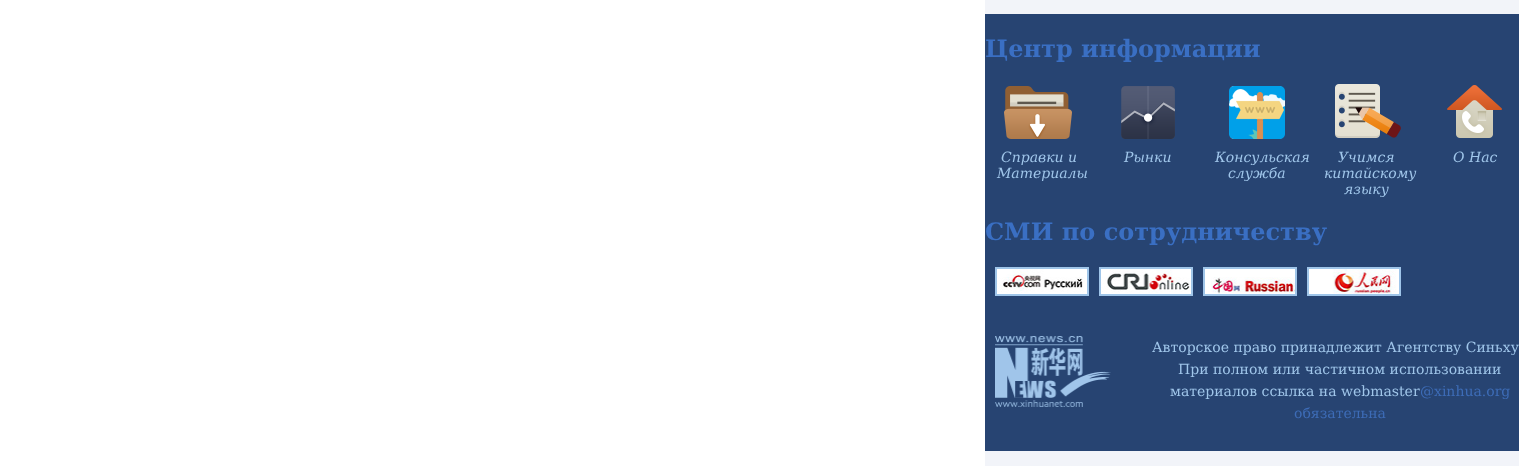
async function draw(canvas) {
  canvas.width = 1519;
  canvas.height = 466;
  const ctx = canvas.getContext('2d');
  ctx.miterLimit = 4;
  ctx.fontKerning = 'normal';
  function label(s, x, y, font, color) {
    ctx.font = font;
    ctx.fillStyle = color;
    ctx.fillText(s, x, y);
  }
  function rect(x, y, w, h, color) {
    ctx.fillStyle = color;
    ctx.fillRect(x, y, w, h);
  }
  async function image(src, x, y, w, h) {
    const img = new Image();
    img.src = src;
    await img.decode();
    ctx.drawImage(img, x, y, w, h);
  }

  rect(0, 0, 1519, 466, '#fff');
  rect(985, 0, 534, 466, '#f2f4f9');
  rect(985, 14, 534, 437, '#274472');
  label('Центр информации', 985, 57, 'bold 24px DejaVu Serif', '#3a6fc3');
  await image('assets/img1.png', 1004, 86, 68, 53);
  label('Справки и', 1001, 162, 'italic 14px DejaVu Serif', '#a0c6ea');
  label('Материалы', 997, 178, 'italic 14px DejaVu Serif', '#a0c6ea');
  await image('assets/img2.png', 1121, 86, 54, 53);
  label('Рынки', 1124, 162, 'italic 14px DejaVu Serif', '#a0c6ea');
  await image('assets/img3.png', 1229, 86, 56, 53);
  label('Консульская', 1215, 162, 'italic 14px DejaVu Serif', '#a0c6ea');
  label('служба', 1228, 178, 'italic 14px DejaVu Serif', '#a0c6ea');
  await image('assets/img4.png', 1335, 84, 66, 54);
  label('Учимся', 1338, 162, 'italic 14px DejaVu Serif', '#a0c6ea');
  label('китайскому', 1324, 178, 'italic 14px DejaVu Serif', '#a0c6ea');
  label('языку', 1344, 194, 'italic 14px DejaVu Serif', '#a0c6ea');
  await image('assets/img5.png', 1447, 85, 55, 53);
  label('О Нас', 1453, 162, 'italic 14px DejaVu Serif', '#a0c6ea');
  label('СМИ по сотрудничеству', 985, 240, 'bold 24px DejaVu Serif', '#3a6fc3');
  ctx.strokeStyle = '#9fc5e9';
  ctx.lineWidth = 2;
  ctx.strokeRect(996, 268, 92, 27);
  await image('assets/img6.png', 997, 269, 90, 25);
  ctx.strokeRect(1100, 268, 92, 27);
  await image('assets/img7.png', 1101, 269, 90, 25);
  ctx.strokeRect(1204, 268, 92, 27);
  await image('assets/img8.png', 1205, 269, 90, 25);
  ctx.strokeRect(1308, 268, 92, 27);
  await image('assets/img9.png', 1309, 269, 90, 25);
  await image('assets/img10.png', 995, 336, 116, 71);
  label('Авторское право принадлежит Агентству Синьху', 1152, 352, '14px DejaVu Serif', '#a0c6ea');
  label('При полном или частичном использовании', 1178, 374, '14px DejaVu Serif', '#a0c6ea');
  label('материалов ссылка на webmaster', 1170, 396, '14px DejaVu Serif', '#a0c6ea');
  label('@xinhua.org', 1420, 396, '14px DejaVu Serif', '#3d6cb7');
  label('обязательна', 1294, 418, '14px DejaVu Serif', '#3d6cb7');
}

draw(document.querySelector('canvas'));
